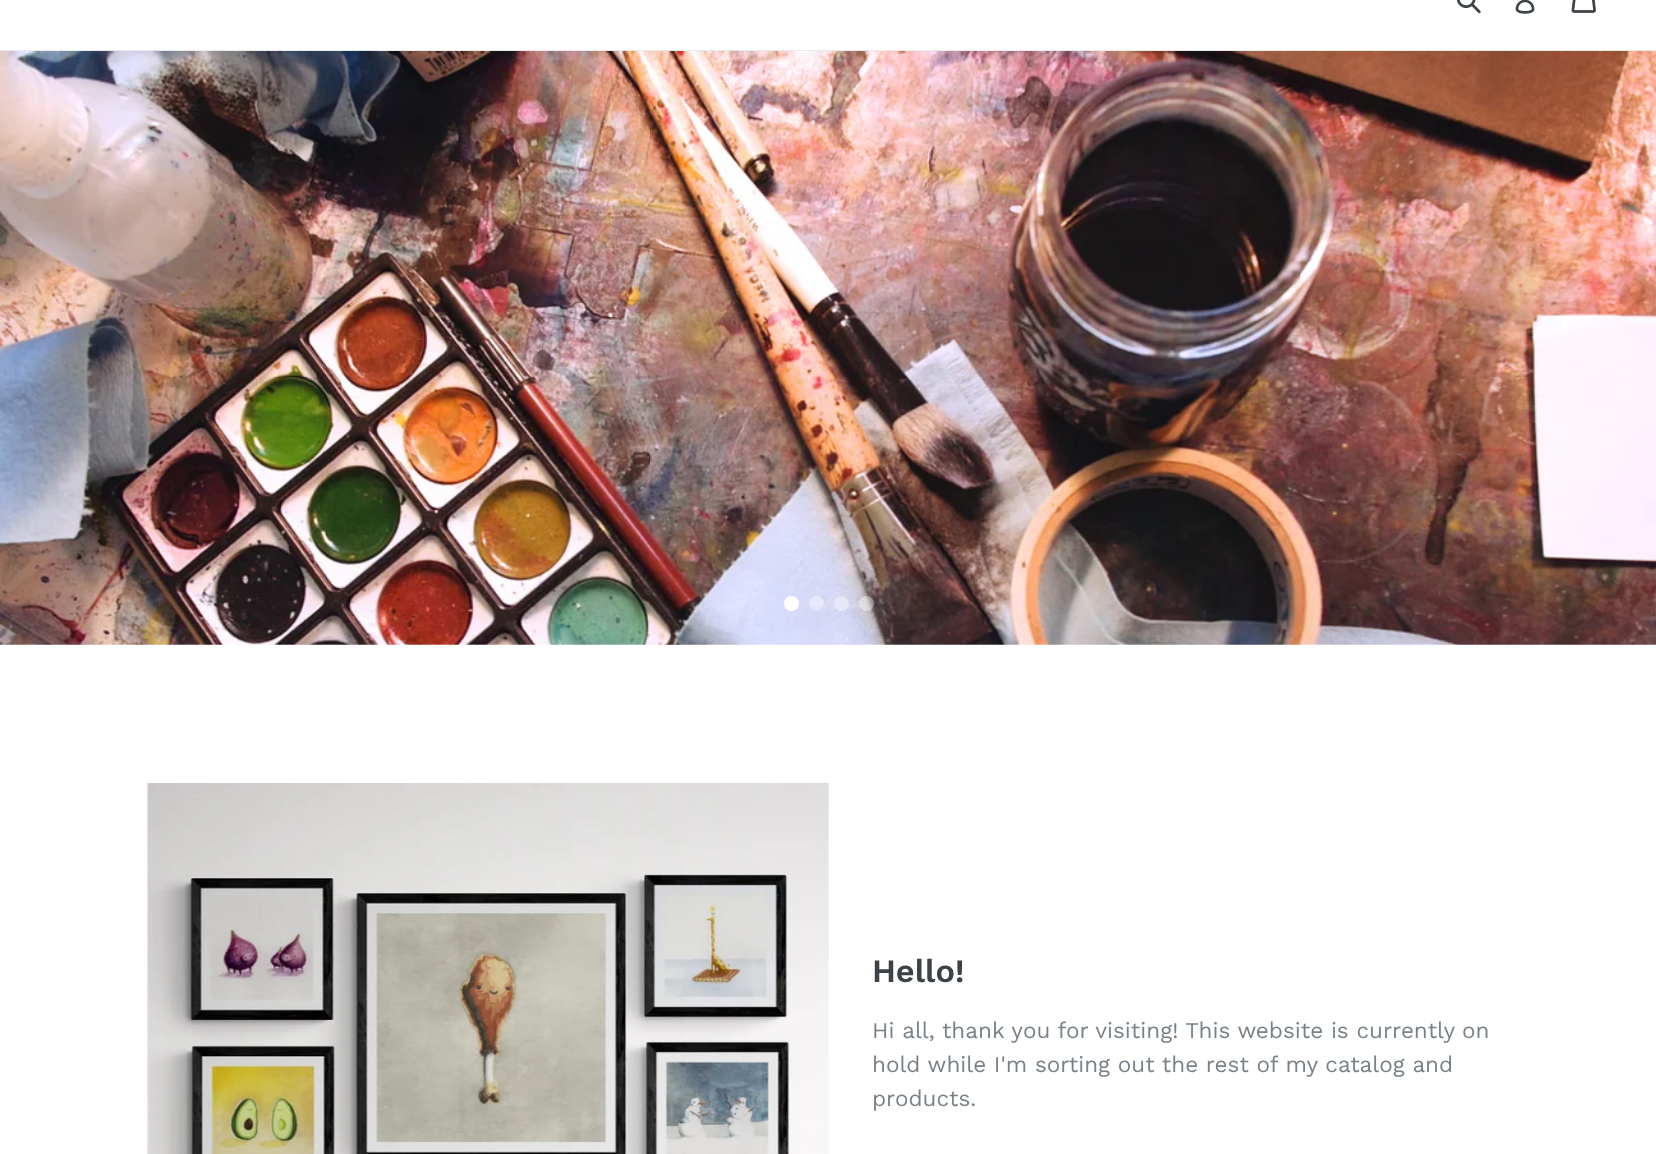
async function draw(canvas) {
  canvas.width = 1656;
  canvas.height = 1154;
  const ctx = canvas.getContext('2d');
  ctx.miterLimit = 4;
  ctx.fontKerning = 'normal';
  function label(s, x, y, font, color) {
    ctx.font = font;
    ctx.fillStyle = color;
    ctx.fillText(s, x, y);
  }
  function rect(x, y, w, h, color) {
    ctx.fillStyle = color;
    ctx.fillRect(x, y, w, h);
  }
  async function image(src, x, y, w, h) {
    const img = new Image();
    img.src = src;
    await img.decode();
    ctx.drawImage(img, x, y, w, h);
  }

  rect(0, 0, 1656, 1154, '#fff');
  rect(0, 50, 1656, 1, '#e8e9eb');
  await image('assets/img1.png', 1456, 0, 25, 14);
  await image('assets/img2.png', 1515, 0, 20, 14);
  await image('assets/img3.png', 1571, 0, 25, 13);
  await image('assets/img4.png', 0, 51, 1656, 594);
  ctx.fillStyle = '#fff';
  ctx.beginPath();
  ctx.arc(791.5, 603.5, 7.5, 0, 2 * Math.PI);
  ctx.fill();
  ctx.fillStyle = '#ffffff66';
  ctx.beginPath();
  ctx.arc(816.5, 603.5, 7.5, 0, 2 * Math.PI);
  ctx.fill();
  ctx.beginPath();
  ctx.arc(841.5, 603.5, 7.5, 0, 2 * Math.PI);
  ctx.fill();
  ctx.beginPath();
  ctx.arc(866.5, 603.5, 7.5, 0, 2 * Math.PI);
  ctx.fill();
  await image('assets/img5.png', 147, 783, 682, 371);
  label('Hello!', 872, 982, '600 32.5px Work Sans', '#3d4246');
  label('Hi all, thank you for visiting! This website is currently on', 872, 1038, '22.5px Work Sans', '#788188');
  label('hold while I\'m sorting out the rest of my catalog and', 872, 1072, '22.5px Work Sans', '#788188');
  label('products.', 872, 1106, '22.5px Work Sans', '#788188');
}

draw(document.querySelector('canvas'));
